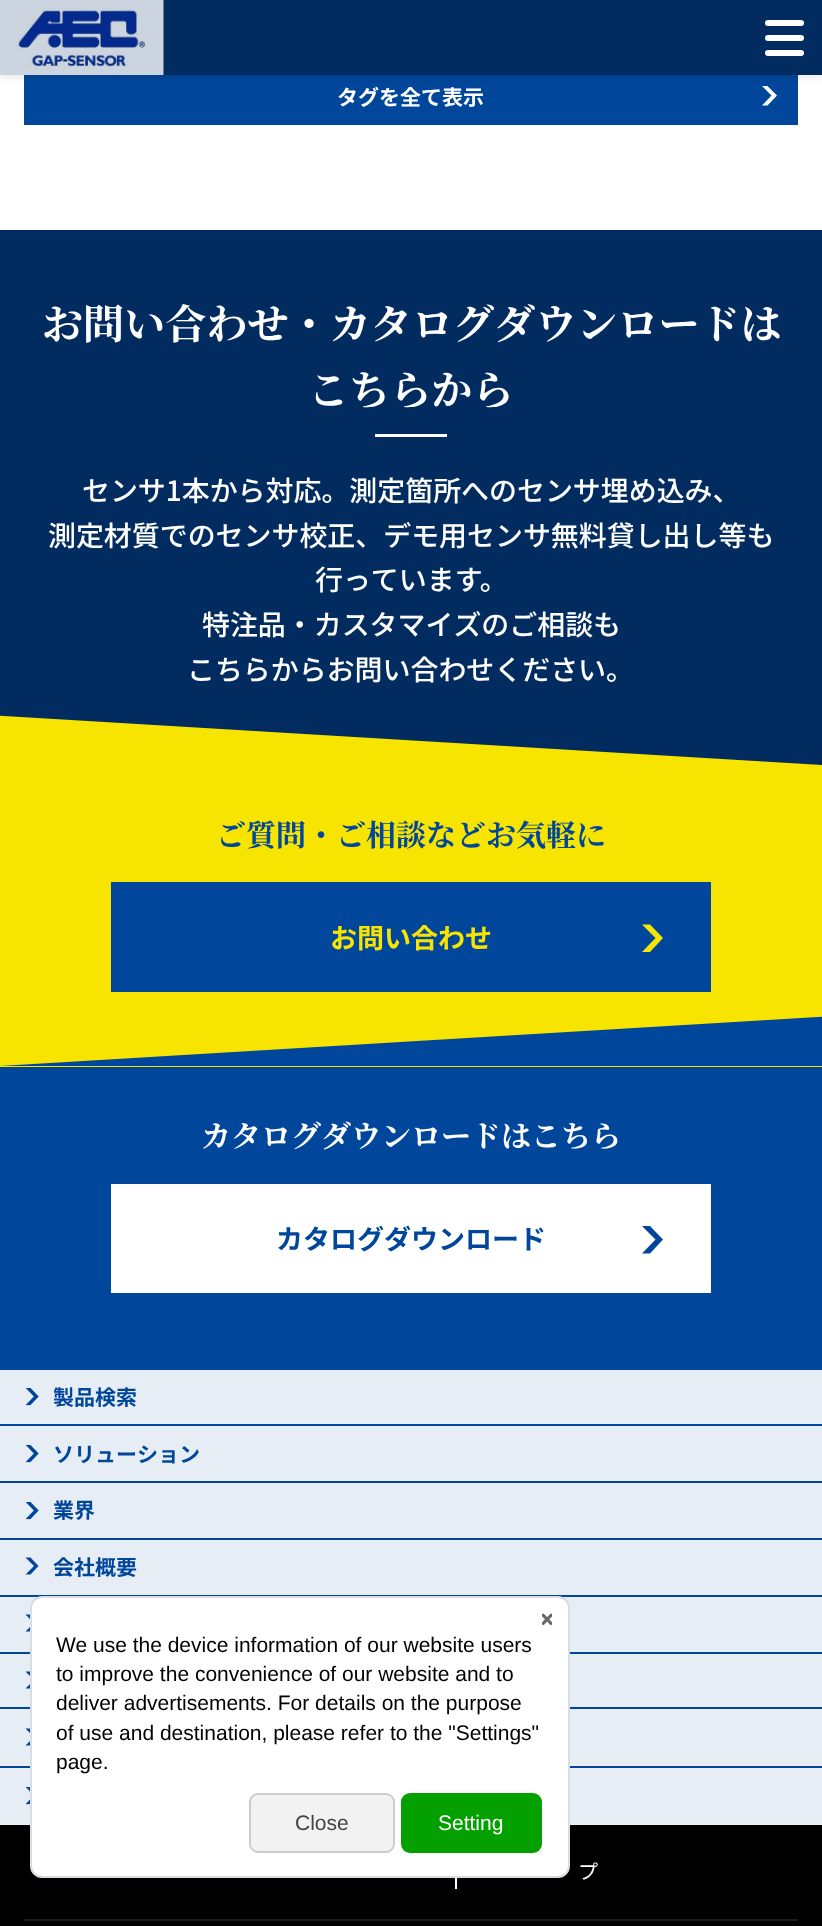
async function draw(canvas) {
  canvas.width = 822;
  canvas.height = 1926;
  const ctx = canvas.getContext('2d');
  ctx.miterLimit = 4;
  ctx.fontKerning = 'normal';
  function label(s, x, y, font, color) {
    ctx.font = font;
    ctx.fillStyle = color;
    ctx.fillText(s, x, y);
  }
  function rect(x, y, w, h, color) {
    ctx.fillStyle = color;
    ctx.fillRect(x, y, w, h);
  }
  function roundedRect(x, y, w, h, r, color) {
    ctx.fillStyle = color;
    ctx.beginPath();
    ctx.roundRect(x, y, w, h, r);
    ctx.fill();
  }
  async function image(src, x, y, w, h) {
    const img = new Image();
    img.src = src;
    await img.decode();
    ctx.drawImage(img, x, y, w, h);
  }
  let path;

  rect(0, 0, 822, 1926, '#fff');
  rect(24, 75, 774, 50, '#00469b');
  ctx.fillStyle = '#fff';
  path = new Path2D('M767.5 86H762L771.5 95.5L762 105.5H767.5L777 95.5Z');
  ctx.fill(path);
  ctx.fillStyle = '#0000001a';
  ctx.filter = 'blur(4px)';
  ctx.beginPath();
  ctx.rect(-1, -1, 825, 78);
  ctx.fill();
  ctx.filter = 'none';
  rect(0, 0, 822, 75, '#022c5f');
  await image('assets/img1.png', 0, 0, 164, 75);
  roundedRect(765, 20, 39, 6, 3, '#fff');
  roundedRect(765, 35, 39, 6, 3, '#fff');
  roundedRect(765, 50, 39, 6, 3, '#fff');
  label('タグを全て表示', 337, 105, 'bold 21px Noto Sans JP', '#fff');
  rect(0, 230, 822, 535, '#022c5f');
  label('お問い合わせ・カタログダウンロードは', 42, 339, '200 41.1px Noto Serif JP', '#fff');
  label('こちらから', 308, 405, '200 41.1px Noto Serif JP', '#fff');
  rect(375, 434, 72, 3, '#fff');
  label('センサ1本から対応。測定箇所へのセンサ埋め込み、', 82, 501, '500 27.95px Noto Sans JP', '#fff');
  label('測定材質でのセンサ校正、デモ用センサ無料貸し出し等も', 48, 546, '500 27.95px Noto Sans JP', '#fff');
  label('行っています。', 315, 590, '500 27.95px Noto Sans JP', '#fff');
  label('特注品・カスタマイズのご相談も', 202, 635, '500 27.95px Noto Sans JP', '#fff');
  label('こちらからお問い合わせください。', 187, 680, '500 27.95px Noto Sans JP', '#fff');
  rect(0, 765, 822, 302, '#f7e400');
  path = new Path2D('M-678 765V675L822 765Z');
  ctx.fill(path);
  label('ご質問・ご相談などお気軽に', 216, 846, '200 30px Noto Serif JP', '#00469b');
  rect(111, 882, 600, 110, '#00469b');
  label('お問い合わせ', 330, 948, 'bold 27px Noto Sans JP', '#f7e400');
  path = new Path2D('M650 924.5H642L655.5 938L642 952H650L663 938Z');
  ctx.fill(path);
  ctx.fillStyle = '#00469b';
  path = new Path2D('M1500 1066H0L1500 976Z');
  ctx.fill(path);
  rect(0, 1067, 822, 303, '#00469b');
  label('カタログダウンロードはこちら', 201, 1147, '200 30px Noto Serif JP', '#fff');
  rect(111, 1184, 600, 109, '#fff');
  label('カタログダウンロード', 276, 1249, 'bold 27px Noto Sans JP', '#00469b');
  path = new Path2D('M650 1226H642L655.5 1239.5L642 1253.5H650L663 1239.5Z');
  ctx.fill(path);
  rect(0, 1370, 822, 453, '#e6edf5');
  await image('assets/img2.png', 26, 1388, 13, 18);
  label('製品検索', 53, 1405, 'bold 21px Noto Sans JP', '#00469b');
  await image('assets/img2.png', 26, 1445, 13, 18);
  rect(0, 1424, 822, 2, '#00469b');
  label('ソリューション', 53, 1462, 'bold 21px Noto Sans JP', '#00469b');
  await image('assets/img2.png', 26, 1502, 13, 18);
  rect(0, 1481, 822, 2, '#00469b');
  label('業界', 53, 1518, 'bold 21px Noto Sans JP', '#00469b');
  path = new Path2D('M30.5 1557.5H25.5L34 1566L25.5 1574.5H30.5L38.5 1566Z');
  ctx.fill(path);
  rect(0, 1538, 822, 2, '#00469b');
  label('会社概要', 53, 1575, 'bold 21px Noto Sans JP', '#00469b');
  path = new Path2D('M30.5 1614.5H25.5L34 1623L25.5 1631.5H30.5L38.5 1623Z');
  ctx.fill(path);
  rect(0, 1595, 822, 2, '#00469b');
  path = new Path2D('M30.5 1671.5H25.5L34 1680L25.5 1688.5H30.5L38.5 1680Z');
  ctx.fill(path);
  rect(0, 1652, 822, 2, '#00469b');
  path = new Path2D('M30.5 1728.5H25.5L34 1737L25.5 1745.5H30.5L38.5 1737Z');
  ctx.fill(path);
  rect(0, 1707, 822, 2, '#00469b');
  rect(0, 1764, 822, 2, '#eee');
  await image('assets/img3.png', 26, 1787, 4, 18);
  rect(0, 1766, 822, 2, '#00469b');
  rect(0, 1823, 822, 2, '#eee');
  rect(0, 1825, 822, 101, '#000');
  rect(455, 1878, 2, 11, '#fff');
  label('プ', 578, 1879, '20px Noto Sans JP', '#fff');
  rect(24, 1919, 774, 2, '#1a1a1a');
  ctx.fillStyle = '#fff';
  ctx.beginPath();
  ctx.roundRect(31, 1597, 538, 280, 11);
  ctx.fill();
  ctx.strokeStyle = '#dbdce1';
  ctx.lineWidth = 2;
  ctx.stroke();
  await image('assets/img4.png', 542, 1613, 10, 12);
  label('We use the device information of our website users', 56, 1652, '21px Liberation Sans', '#000');
  label('to improve the convenience of our website and to', 56, 1681, '21px Liberation Sans', '#000');
  label('deliver advertisements. For details on the purpose', 56, 1710, '21px Liberation Sans', '#000');
  label('of use and destination, please refer to the "Settings"', 56, 1740, '21px Liberation Sans', '#000');
  label('page.', 56, 1769, '21px Liberation Sans', '#000');
  ctx.fillStyle = '#f2f2f2';
  ctx.beginPath();
  ctx.roundRect(250, 1794, 144, 58, 8);
  ctx.fill();
  ctx.strokeStyle = '#ccc';
  ctx.stroke();
  label('Close', 295, 1830, '21px Liberation Sans', '#444');
  roundedRect(401, 1793, 141, 60, 9, '#03a000');
  label('Setting', 438, 1830, '21px Liberation Sans', '#fff');
}

draw(document.querySelector('canvas'));
